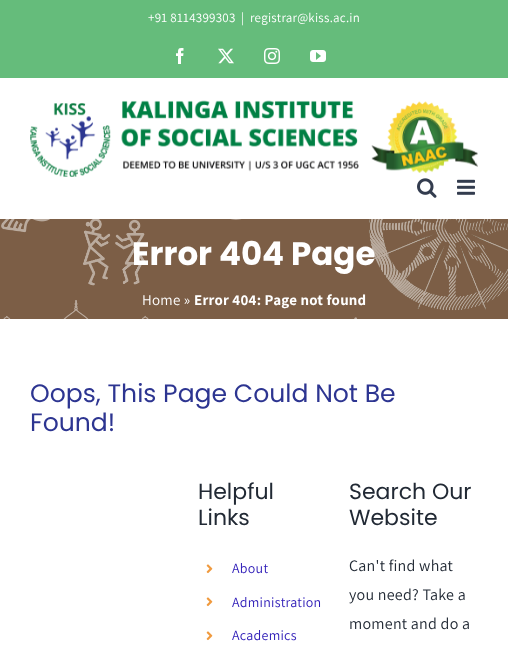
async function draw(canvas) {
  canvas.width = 508;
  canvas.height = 650;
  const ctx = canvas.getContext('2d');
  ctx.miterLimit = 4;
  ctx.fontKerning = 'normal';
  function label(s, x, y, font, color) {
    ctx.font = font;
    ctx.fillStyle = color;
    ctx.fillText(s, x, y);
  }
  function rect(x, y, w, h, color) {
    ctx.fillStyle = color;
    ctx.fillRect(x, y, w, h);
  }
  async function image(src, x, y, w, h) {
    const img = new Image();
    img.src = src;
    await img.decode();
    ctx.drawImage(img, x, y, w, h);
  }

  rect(0, 0, 508, 650, '#fff');
  rect(0, 0, 508, 78, '#65bc7b');
  ctx.letterSpacing = '0.25px';
  label('+91 8114399303', 148, 22, '13px Assistant', '#fff');
  label('|', 241, 22, '13px Assistant', '#fff');
  label('registrar@kiss.ac.in', 250, 22, '13px Assistant', '#fff');
  await image('assets/img1.png', 176, 48, 8, 16);
  await image('assets/img2.png', 218, 48, 16, 16);
  await image('assets/img3.png', 264, 48, 16, 16);
  await image('assets/img4.png', 310, 50, 16, 12);
  await image('assets/img5.png', 30, 100, 448, 77);
  await image('assets/img6.png', 417, 178, 20, 20);
  await image('assets/img7.png', 457, 179, 18, 16);
  rect(0, 219, 508, 100, '#7c5e46');
  await image('assets/img8.png', 1, 219, 507, 100);
  ctx.letterSpacing = '0px';
  label('Error 404 Page', 132, 265, 'bold 32.5px Poppins', '#fff');
  ctx.letterSpacing = '0.25px';
  label('Home »', 142, 305, '15px Assistant', '#fff');
  label('Error 404: Page not found', 194, 305, 'bold 15px Assistant', '#fff');
  ctx.letterSpacing = '0px';
  label('Oops, This Page Could Not Be', 30, 402, '25.1px Poppins', '#2d3591');
  label('Found!', 30, 431, '25.1px Poppins', '#2d3591');
  label('Helpful', 198, 499, '22px Poppins', '#212934');
  label('Links', 198, 525, '22px Poppins', '#212934');
  await image('assets/img9.png', 206, 564, 7, 10);
  ctx.letterSpacing = '0.25px';
  label('About', 232, 573, '14px Assistant', '#2d1bb7');
  await image('assets/img9.png', 206, 597, 7, 10);
  label('Administration', 232, 607, '14px Assistant', '#2d1bb7');
  await image('assets/img9.png', 206, 631, 7, 10);
  label('Academics', 232, 640, '14px Assistant', '#2d1bb7');
  ctx.letterSpacing = '0px';
  label('Search Our', 349, 499, '22px Poppins', '#212934');
  label('Website', 349, 525, '22px Poppins', '#212934');
  ctx.letterSpacing = '0.25px';
  label('Can\'t find what', 349, 571, '16px Assistant', '#212934');
  label('you need? Take a', 349, 600, '16px Assistant', '#212934');
  label('moment and do a', 349, 629, '16px Assistant', '#212934');
}

draw(document.querySelector('canvas'));
